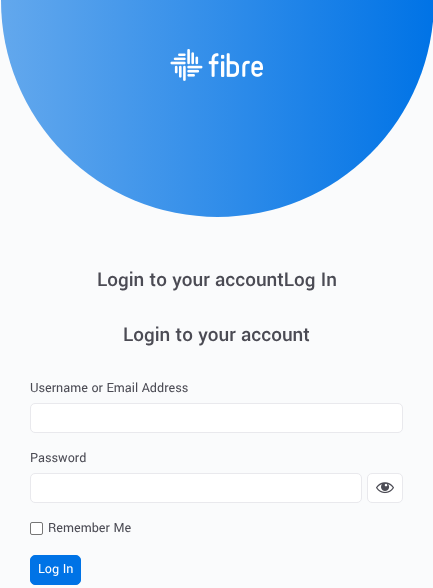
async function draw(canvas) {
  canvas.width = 433;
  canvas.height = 588;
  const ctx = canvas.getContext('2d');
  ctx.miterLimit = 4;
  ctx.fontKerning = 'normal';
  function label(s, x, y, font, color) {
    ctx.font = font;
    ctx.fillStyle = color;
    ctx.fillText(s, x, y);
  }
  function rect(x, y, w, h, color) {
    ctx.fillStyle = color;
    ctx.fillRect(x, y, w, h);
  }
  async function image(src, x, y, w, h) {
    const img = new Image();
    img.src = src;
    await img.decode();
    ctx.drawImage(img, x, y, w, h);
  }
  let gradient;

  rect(0, 0, 433, 588, '#fafbfc');
  gradient = ctx.createLinearGradient(0.5, 0, 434, 0);
  gradient.addColorStop(0, '#63a8ed');
  gradient.addColorStop(1, '#0073e6');
  ctx.fillStyle = gradient;
  ctx.beginPath();
  ctx.arc(217.5, 0.5, 216.5, 0, 2 * Math.PI);
  ctx.fill();
  label('Login to your accountLog In', 97, 286, '500 21px Yantramanav', '#4b4b54');
  await image('assets/img1.png', 170, 49, 93, 32);
  label('Login to your account', 123, 341, '500 21px Yantramanav', '#4b4b54');
  label('Username or Email Address', 30, 392, '14px Yantramanav', '#4b4b54');
  ctx.fillStyle = '#fff';
  ctx.beginPath();
  ctx.roundRect(30.5, 403.5, 372, 29, 4.5);
  ctx.fill();
  ctx.strokeStyle = '#e9e9ed';
  ctx.stroke();
  label('Password', 30, 462, '14px Yantramanav', '#4b4b54');
  ctx.fillStyle = '#fff';
  ctx.beginPath();
  ctx.roundRect(30.5, 473.5, 331, 29, 4.5);
  ctx.fill();
  ctx.stroke();
  ctx.beginPath();
  ctx.roundRect(367.5, 473.5, 35, 29, 4.5);
  ctx.fill();
  ctx.stroke();
  await image('assets/img2.png', 376, 482, 18, 12);
  ctx.beginPath();
  ctx.roundRect(30.5, 522.5, 12, 12, 1.5);
  ctx.fill();
  ctx.strokeStyle = '#767676';
  ctx.stroke();
  label('Remember Me', 48, 532, '14px Yantramanav', '#4b4b54');
  ctx.fillStyle = '#0073e6';
  ctx.beginPath();
  ctx.roundRect(30.5, 555.5, 50, 29, 4.5);
  ctx.fill();
  ctx.strokeStyle = '#0073e6';
  ctx.stroke();
  label('Log In', 38, 573, '14px Yantramanav', '#fff');
}

draw(document.querySelector('canvas'));
